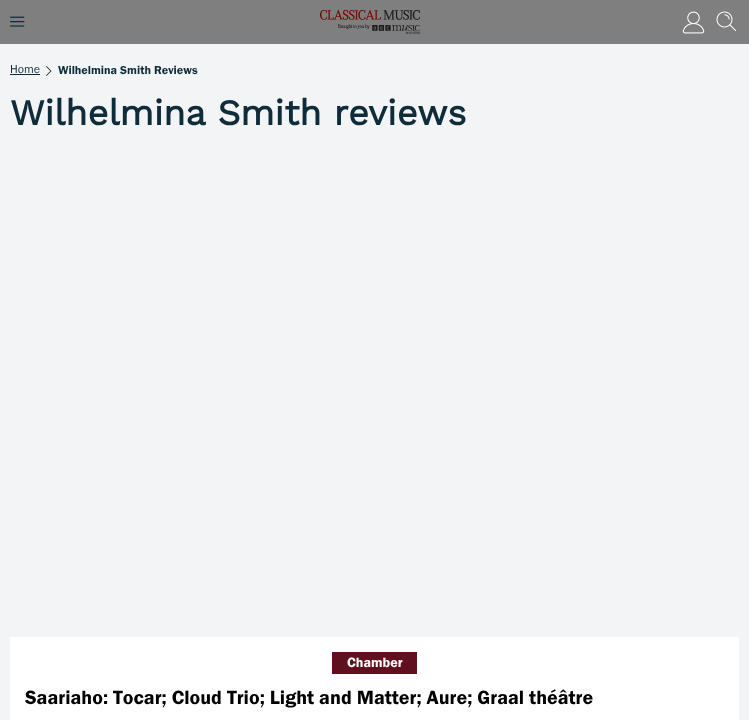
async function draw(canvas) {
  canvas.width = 749;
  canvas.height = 720;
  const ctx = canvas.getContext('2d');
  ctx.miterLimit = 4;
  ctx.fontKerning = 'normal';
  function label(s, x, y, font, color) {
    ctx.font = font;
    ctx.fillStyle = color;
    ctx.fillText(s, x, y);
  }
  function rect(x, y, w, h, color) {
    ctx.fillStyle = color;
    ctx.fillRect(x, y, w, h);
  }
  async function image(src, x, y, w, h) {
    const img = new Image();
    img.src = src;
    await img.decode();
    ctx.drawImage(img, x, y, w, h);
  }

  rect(0, 0, 749, 720, '#f3f4f5');
  rect(0, 0, 749, 44, '#7f7f7f');
  await image('assets/img1.png', 10, 16, 15, 11);
  await image('assets/img2.png', 320, 10, 100, 24);
  await image('assets/img3.png', 682, 11, 23, 23);
  await image('assets/img4.png', 716, 11, 21, 21);
  label('Home', 10, 73, '12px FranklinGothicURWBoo', '#0f2c3b');
  rect(10, 74, 30, 1, '#0f2c3b');
  await image('assets/img5.png', 46, 66, 6, 10);
  label('Wilhelmina Smith Reviews', 58, 74, '12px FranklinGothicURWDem', '#0f2c3b');
  label('Wilhelmina Smith reviews', 10, 125, 'bold 36px Work Sans', '#0f2c3b');
  rect(10, 637, 729, 83, '#fff');
  rect(332, 652, 85, 22, '#5f0f1d');
  label('Chamber', 347, 667, '14px FranklinGothicURWDem', '#fff');
  label('Saariaho: Tocar; Cloud Trio; Light and Matter; Aure; Graal théâtre', 25, 704, '20px FranklinGothicURWDem', '#000');
}

draw(document.querySelector('canvas'));
